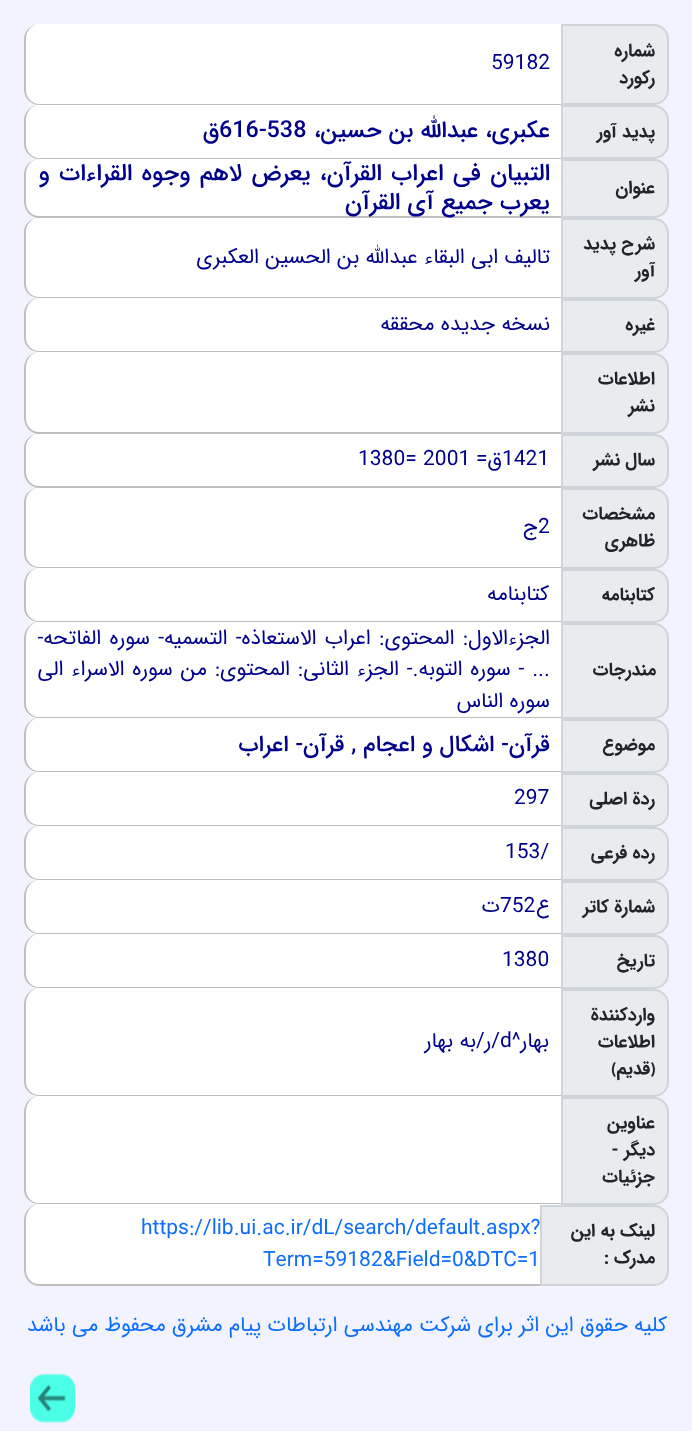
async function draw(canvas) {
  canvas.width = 692;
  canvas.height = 1431;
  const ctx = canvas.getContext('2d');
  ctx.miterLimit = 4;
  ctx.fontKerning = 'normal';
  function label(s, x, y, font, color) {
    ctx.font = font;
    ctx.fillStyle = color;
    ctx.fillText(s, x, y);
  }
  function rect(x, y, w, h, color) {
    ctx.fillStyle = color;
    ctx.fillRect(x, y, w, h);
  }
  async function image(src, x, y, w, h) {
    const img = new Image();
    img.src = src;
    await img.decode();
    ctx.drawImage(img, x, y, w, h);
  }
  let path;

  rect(0, 0, 692, 1431, '#f3f3ff');
  ctx.fillStyle = '#e9ecef';
  ctx.beginPath();
  ctx.roundRect(562, 25, 106, 79, [0, 14, 14, 0]);
  ctx.fill();
  ctx.strokeStyle = '#ced4da';
  ctx.lineWidth = 2;
  ctx.stroke();
  ctx.direction = 'rtl';
  label('شماره', 655, 56, 'bold 18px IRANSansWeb', '#212529');
  label('ركورد', 655, 83, 'bold 18px IRANSansWeb', '#212529');
  ctx.fillStyle = '#fff';
  ctx.beginPath();
  ctx.roundRect(24, 24, 537, 81, [15, 0, 0, 15]);
  ctx.fill();
  ctx.fillStyle = '#c0c0c0';
  path = new Path2D('M39 24H561V105H39C31 105 24 98 24 90V39C24 31 31 24 39 24ZM39 24H561V104H39C32 104 26 97 26 90V39C26 31 32 24 39 24Z');
  ctx.fill(path, 'evenodd');
  ctx.direction = 'ltr';
  label('59182', 491, 69, '21px IRANSansWeb', '#00008b');
  ctx.fillStyle = '#e9ecef';
  ctx.beginPath();
  ctx.roundRect(562, 106, 106, 52, [0, 14, 14, 0]);
  ctx.fill();
  ctx.stroke();
  ctx.direction = 'rtl';
  label('پديد آور', 655, 137, 'bold 18px IRANSansWeb', '#212529');
  ctx.fillStyle = '#fff';
  ctx.beginPath();
  ctx.roundRect(24, 105, 537, 54, [15, 0, 0, 15]);
  ctx.fill();
  ctx.fillStyle = '#c0c0c0';
  path = new Path2D('M39 105H561V159H39C31 159 24 152 24 144V120C24 112 31 105 39 105ZM39 105H561V158H39C32 158 26 151 26 144V120C26 112 32 105 39 105Z');
  ctx.fill(path, 'evenodd');
  label('عكبري، عبدالله بن حسين،', 550, 137, '500 23.4px IRANSansWeb', '#00008b');
  ctx.direction = 'ltr';
  label('616-538', 219, 137, '500 23.4px IRANSansWeb', '#00008b');
  ctx.direction = 'rtl';
  label('ق', 219, 137, '500 23.4px IRANSansWeb', '#00008b');
  ctx.fillStyle = '#e9ecef';
  ctx.beginPath();
  ctx.roundRect(562, 160, 106, 57, [0, 14, 14, 0]);
  ctx.fill();
  ctx.stroke();
  label('عنوان', 655, 193, 'bold 18px IRANSansWeb', '#212529');
  ctx.fillStyle = '#fff';
  ctx.beginPath();
  ctx.roundRect(24, 159, 537, 59, [15, 0, 0, 15]);
  ctx.fill();
  ctx.fillStyle = '#c0c0c0';
  path = new Path2D('M39 159H561V218H39C31 218 24 211 24 202V174C24 166 31 159 39 159ZM39 159H561V216H39C32 216 26 210 26 202V174C26 166 32 159 39 159Z');
  ctx.fill(path, 'evenodd');
  ctx.wordSpacing = '2.25px';
  label('التبيان في اعراب القرآن، يعرض لاهم وجوه القراءات و', 550, 180, '500 23.9px IRANSansWeb', '#00008b');
  ctx.wordSpacing = '0px';
  label('يعرب جميع آي القرآن', 550, 209, '500 23.9px IRANSansWeb', '#00008b');
  ctx.fillStyle = '#e9ecef';
  ctx.beginPath();
  ctx.roundRect(562, 219, 106, 79, [0, 14, 14, 0]);
  ctx.fill();
  ctx.stroke();
  label('شرح پديد', 655, 249, 'bold 18px IRANSansWeb', '#212529');
  label('آور', 655, 276, 'bold 18px IRANSansWeb', '#212529');
  ctx.fillStyle = '#fff';
  ctx.beginPath();
  ctx.roundRect(24, 218, 537, 81, [15, 0, 0, 15]);
  ctx.fill();
  ctx.fillStyle = '#c0c0c0';
  path = new Path2D('M39 218H561V298H39C31 298 24 292 24 284V232C24 224 31 218 39 218ZM39 218H561V297H39C32 297 26 291 26 284V232C26 224 32 218 39 218Z');
  ctx.fill(path, 'evenodd');
  label('تاليف ابي البقاء عبدالله بن الحسين العكبري', 550, 263, '21px IRANSansWeb', '#00008b');
  ctx.fillStyle = '#e9ecef';
  ctx.beginPath();
  ctx.roundRect(562, 300, 106, 52, [0, 14, 14, 0]);
  ctx.fill();
  ctx.stroke();
  label('غيره', 655, 330, 'bold 18px IRANSansWeb', '#212529');
  ctx.fillStyle = '#fff';
  ctx.beginPath();
  ctx.roundRect(24, 299, 537, 54, [15, 0, 0, 15]);
  ctx.fill();
  ctx.fillStyle = '#c0c0c0';
  path = new Path2D('M39 298H561V352H39C31 352 24 346 24 338V314C24 305 31 298 39 298ZM39 298H561V351H39C32 351 26 345 26 338V314C26 305 32 298 39 298Z');
  ctx.fill(path, 'evenodd');
  label('نسخه جديده محققه', 550, 330, '21px IRANSansWeb', '#00008b');
  ctx.fillStyle = '#e9ecef';
  ctx.beginPath();
  ctx.roundRect(562, 354, 106, 79, [0, 14, 14, 0]);
  ctx.fill();
  ctx.stroke();
  label('اطلاعات', 655, 384, 'bold 18px IRANSansWeb', '#212529');
  label('نشر', 655, 411, 'bold 18px IRANSansWeb', '#212529');
  ctx.fillStyle = '#fff';
  ctx.beginPath();
  ctx.roundRect(24, 353, 537, 81, [15, 0, 0, 15]);
  ctx.fill();
  ctx.fillStyle = '#c0c0c0';
  path = new Path2D('M39 352H561V434H39C31 434 24 427 24 418V368C24 359 31 352 39 352ZM39 352H561V432H39C32 432 26 426 26 418V368C26 359 32 352 39 352Z');
  ctx.fill(path, 'evenodd');
  ctx.fillStyle = '#e9ecef';
  ctx.beginPath();
  ctx.roundRect(562, 435, 106, 52, [0, 14, 14, 0]);
  ctx.fill();
  ctx.stroke();
  label('سال نشر', 655, 465, 'bold 18px IRANSansWeb', '#212529');
  ctx.fillStyle = '#fff';
  ctx.beginPath();
  ctx.roundRect(24, 434, 537, 54, [15, 0, 0, 15]);
  ctx.fill();
  ctx.fillStyle = '#c0c0c0';
  path = new Path2D('M39 434H561V488H39C31 488 24 481 24 472V448C24 440 31 434 39 434ZM39 434H561V486H39C32 486 26 480 26 472V448C26 440 32 434 39 434Z');
  ctx.fill(path, 'evenodd');
  ctx.direction = 'ltr';
  label('1421', 502, 465, '21px IRANSansWeb', '#00008b');
  ctx.direction = 'rtl';
  label('ق=', 502, 465, '21px IRANSansWeb', '#00008b');
  ctx.direction = 'ltr';
  label('1380= 2001', 358, 465, '21px IRANSansWeb', '#00008b');
  ctx.fillStyle = '#e9ecef';
  ctx.beginPath();
  ctx.roundRect(562, 489, 106, 79, [0, 14, 14, 0]);
  ctx.fill();
  ctx.stroke();
  ctx.direction = 'rtl';
  label('مشخصات', 655, 519, 'bold 18px IRANSansWeb', '#212529');
  label('ظاهري', 655, 546, 'bold 18px IRANSansWeb', '#212529');
  ctx.fillStyle = '#fff';
  ctx.beginPath();
  ctx.roundRect(24, 488, 537, 81, [15, 0, 0, 15]);
  ctx.fill();
  ctx.fillStyle = '#c0c0c0';
  path = new Path2D('M39 488H561V568H39C31 568 24 562 24 554V502C24 494 31 488 39 488ZM39 488H561V567H39C32 567 26 561 26 554V502C26 494 32 488 39 488Z');
  ctx.fill(path, 'evenodd');
  ctx.direction = 'ltr';
  label('2', 538, 533, '21px IRANSansWeb', '#00008b');
  ctx.direction = 'rtl';
  label('ج', 538, 533, '21px IRANSansWeb', '#00008b');
  ctx.fillStyle = '#e9ecef';
  ctx.beginPath();
  ctx.roundRect(562, 570, 106, 52, [0, 14, 14, 0]);
  ctx.fill();
  ctx.stroke();
  label('كتابنامه', 655, 600, 'bold 18px IRANSansWeb', '#212529');
  ctx.fillStyle = '#fff';
  ctx.beginPath();
  ctx.roundRect(24, 569, 537, 54, [15, 0, 0, 15]);
  ctx.fill();
  ctx.fillStyle = '#c0c0c0';
  path = new Path2D('M39 568H561V622H39C31 622 24 616 24 608V584C24 575 31 568 39 568ZM39 568H561V621H39C32 621 26 615 26 608V584C26 575 32 568 39 568Z');
  ctx.fill(path, 'evenodd');
  label('كتابنامه', 549, 600, '21px IRANSansWeb', '#00008b');
  ctx.fillStyle = '#e9ecef';
  ctx.beginPath();
  ctx.roundRect(562, 624, 106, 94, [0, 14, 14, 0]);
  ctx.fill();
  ctx.stroke();
  label('مندرجات', 656, 675, 'bold 18px IRANSansWeb', '#212529');
  ctx.fillStyle = '#fff';
  ctx.beginPath();
  ctx.roundRect(24, 623, 537, 96, [15, 0, 0, 15]);
  ctx.fill();
  ctx.fillStyle = '#c0c0c0';
  path = new Path2D('M39 622H561V718H39C31 718 24 712 24 704V638C24 629 31 622 39 622ZM39 622H561V717H39C32 717 26 711 26 704V638C26 629 32 622 39 622Z');
  ctx.fill(path, 'evenodd');
  ctx.wordSpacing = '2px';
  label('الجزءالاول: المحتوي: اعراب الاستعاذه- التسميه- سوره الفاتحه-', 550, 644, '21px IRANSansWeb', '#00008b');
  ctx.wordSpacing = '1.5px';
  label('... - سوره التوبه.- الجزء الثاني: المحتوي: من سوره الاسراء الي', 550, 675, '21px IRANSansWeb', '#00008b');
  ctx.wordSpacing = '0px';
  label('سوره الناس', 550, 707, '21px IRANSansWeb', '#00008b');
  ctx.fillStyle = '#e9ecef';
  ctx.beginPath();
  ctx.roundRect(562, 720, 106, 52, [0, 14, 14, 0]);
  ctx.fill();
  ctx.stroke();
  label('موضوع', 655, 750, 'bold 18px IRANSansWeb', '#212529');
  ctx.fillStyle = '#fff';
  ctx.beginPath();
  ctx.roundRect(24, 719, 537, 54, [15, 0, 0, 15]);
  ctx.fill();
  ctx.fillStyle = '#c0c0c0';
  path = new Path2D('M39 718H561V772H39C31 772 24 766 24 758V734C24 725 31 718 39 718ZM39 718H561V771H39C32 771 26 765 26 758V734C26 725 32 718 39 718Z');
  ctx.fill(path, 'evenodd');
  label('قرآن- اشكال و اعجام , قرآن- اعراب', 550, 751, '500 22.9px IRANSansWeb', '#00008b');
  ctx.fillStyle = '#e9ecef';
  ctx.beginPath();
  ctx.roundRect(562, 774, 106, 52, [0, 14, 14, 0]);
  ctx.fill();
  ctx.stroke();
  label('ردة اصلي', 655, 804, 'bold 18px IRANSansWeb', '#212529');
  ctx.fillStyle = '#fff';
  ctx.beginPath();
  ctx.roundRect(24, 773, 537, 54, [15, 0, 0, 15]);
  ctx.fill();
  ctx.fillStyle = '#c0c0c0';
  path = new Path2D('M39 772H561V826H39C31 826 24 820 24 812V788C24 779 31 772 39 772ZM39 772H561V825H39C32 825 26 819 26 812V788C26 779 32 772 39 772Z');
  ctx.fill(path, 'evenodd');
  ctx.direction = 'ltr';
  label('297', 514, 804, '21px IRANSansWeb', '#00008b');
  ctx.fillStyle = '#e9ecef';
  ctx.beginPath();
  ctx.roundRect(562, 828, 106, 52, [0, 14, 14, 0]);
  ctx.fill();
  ctx.stroke();
  ctx.direction = 'rtl';
  label('رده فرعي', 655, 858, 'bold 18px IRANSansWeb', '#212529');
  ctx.fillStyle = '#fff';
  ctx.beginPath();
  ctx.roundRect(24, 827, 537, 54, [15, 0, 0, 15]);
  ctx.fill();
  ctx.fillStyle = '#c0c0c0';
  path = new Path2D('M39 826H561V880H39C31 880 24 874 24 866V842C24 833 31 826 39 826ZM39 826H561V879H39C32 879 26 873 26 866V842C26 833 32 826 39 826Z');
  ctx.fill(path, 'evenodd');
  ctx.direction = 'ltr';
  label('153/', 505, 858, '21px IRANSansWeb', '#00008b');
  ctx.fillStyle = '#e9ecef';
  ctx.beginPath();
  ctx.roundRect(562, 882, 106, 52, [0, 14, 14, 0]);
  ctx.fill();
  ctx.stroke();
  ctx.direction = 'rtl';
  label('شمارة كاتر', 655, 912, 'bold 18px IRANSansWeb', '#212529');
  ctx.fillStyle = '#fff';
  ctx.beginPath();
  ctx.roundRect(24, 881, 537, 54, [15, 0, 0, 15]);
  ctx.fill();
  ctx.fillStyle = '#c0c0c0';
  path = new Path2D('M39 880H561V934H39C31 934 24 928 24 920V896C24 887 31 880 39 880ZM39 880H561V933H39C32 933 26 927 26 920V896C26 887 32 880 39 880Z');
  ctx.fill(path, 'evenodd');
  label('ع', 550, 912, '21px IRANSansWeb', '#00008b');
  ctx.direction = 'ltr';
  label('752', 500, 912, '21px IRANSansWeb', '#00008b');
  ctx.direction = 'rtl';
  label('ت', 500, 912, '21px IRANSansWeb', '#00008b');
  ctx.fillStyle = '#e9ecef';
  ctx.beginPath();
  ctx.roundRect(562, 936, 106, 52, [0, 14, 14, 0]);
  ctx.fill();
  ctx.stroke();
  label('تاريخ', 655, 966, 'bold 18px IRANSansWeb', '#212529');
  ctx.fillStyle = '#fff';
  ctx.beginPath();
  ctx.roundRect(24, 935, 537, 54, [15, 0, 0, 15]);
  ctx.fill();
  ctx.fillStyle = '#c0c0c0';
  path = new Path2D('M39 934H561V988H39C31 988 24 982 24 974V950C24 941 31 934 39 934ZM39 934H561V987H39C32 987 26 981 26 974V950C26 941 32 934 39 934Z');
  ctx.fill(path, 'evenodd');
  ctx.direction = 'ltr';
  label('1380', 502, 966, '21px IRANSansWeb', '#00008b');
  ctx.fillStyle = '#e9ecef';
  ctx.beginPath();
  ctx.roundRect(562, 990, 106, 106, [0, 14, 14, 0]);
  ctx.fill();
  ctx.stroke();
  ctx.direction = 'rtl';
  label('واردكنندة', 655, 1020, 'bold 18px IRANSansWeb', '#212529');
  label('اطلاعات', 655, 1047, 'bold 18px IRANSansWeb', '#212529');
  label('﴿قديم﴾', 655, 1074, 'bold 18px IRANSansWeb', '#212529');
  ctx.fillStyle = '#fff';
  ctx.beginPath();
  ctx.roundRect(24, 989, 537, 108, [15, 0, 0, 15]);
  ctx.fill();
  ctx.fillStyle = '#c0c0c0';
  path = new Path2D('M39 988H561V1096H39C31 1096 24 1090 24 1082V1004C24 995 31 988 39 988ZM39 988H561V1095H39C32 1095 26 1089 26 1082V1004C26 995 32 988 39 988Z');
  ctx.fill(path, 'evenodd');
  label('بهار^', 549, 1047, '21px IRANSansWeb', '#00008b');
  ctx.direction = 'ltr';
  label('d', 500, 1047, '21px IRANSansWeb', '#00008b');
  ctx.direction = 'rtl';
  label('/ر/به بهار', 500, 1047, '21px IRANSansWeb', '#00008b');
  ctx.fillStyle = '#e9ecef';
  ctx.beginPath();
  ctx.roundRect(562, 1098, 106, 106, [0, 14, 14, 0]);
  ctx.fill();
  ctx.stroke();
  label('عناوين', 655, 1128, 'bold 18px IRANSansWeb', '#212529');
  label('ديگر -', 655, 1155, 'bold 18px IRANSansWeb', '#212529');
  label('جزئيات', 655, 1182, 'bold 18px IRANSansWeb', '#212529');
  ctx.fillStyle = '#fff';
  ctx.beginPath();
  ctx.roundRect(24, 1097, 537, 108, [15, 0, 0, 15]);
  ctx.fill();
  ctx.fillStyle = '#c0c0c0';
  path = new Path2D('M39 1096H561V1204H39C31 1204 24 1198 24 1190V1112C24 1103 31 1096 39 1096ZM39 1096H561V1203H39C32 1203 26 1197 26 1190V1112C26 1103 32 1096 39 1096Z');
  ctx.fill(path, 'evenodd');
  ctx.fillStyle = '#e9ecef';
  ctx.beginPath();
  ctx.roundRect(541, 1206, 127, 79, [0, 14, 14, 0]);
  ctx.fill();
  ctx.stroke();
  label('لينک به اين', 655, 1236, 'bold 18px IRANSansWeb', '#212529');
  label('مدرک :', 655, 1263, 'bold 18px IRANSansWeb', '#212529');
  ctx.fillStyle = '#fff';
  ctx.beginPath();
  ctx.roundRect(24, 1205, 516, 81, [15, 0, 0, 15]);
  ctx.fill();
  ctx.fillStyle = '#c0c0c0';
  path = new Path2D('M39 1204H540V1286H39C31 1286 24 1279 24 1270V1220C24 1211 31 1204 39 1204ZM39 1204H540V1284H39C32 1284 26 1278 26 1270V1220C26 1211 32 1204 39 1204Z');
  ctx.fill(path, 'evenodd');
  ctx.direction = 'ltr';
  label('https://lib.ui.ac.ir/dL/search/default.aspx?', 141, 1234, '21px IRANSansWeb', '#0d6efd');
  label('Term=59182&Field=0&DTC=1', 263, 1266, '21px IRANSansWeb', '#0d6efd');
  ctx.direction = 'rtl';
  label('کلیه حقوق این اثر برای شرکت مهندسی ارتباطات پيام مشرق محفوظ می باشد', 667, 1331, '21px IRANSansWeb', '#0d6efd');
  await image('assets/img1.png', 30, 1373, 45, 51);
}

draw(document.querySelector('canvas'));
